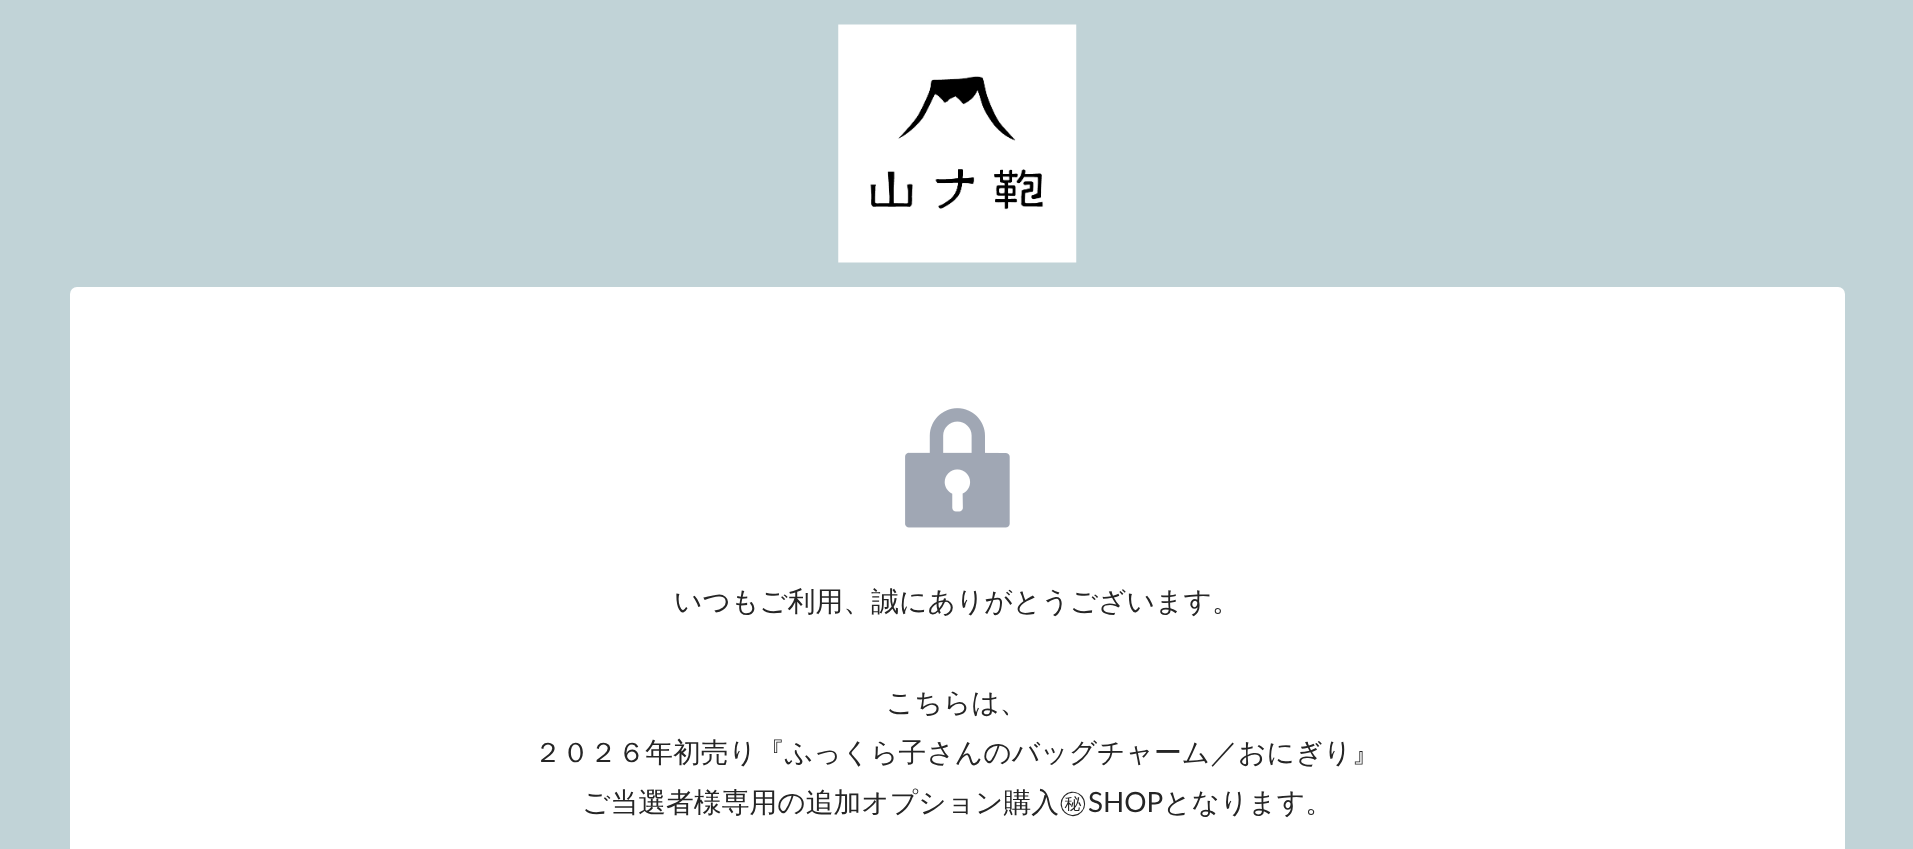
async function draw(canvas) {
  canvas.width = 1913;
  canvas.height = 849;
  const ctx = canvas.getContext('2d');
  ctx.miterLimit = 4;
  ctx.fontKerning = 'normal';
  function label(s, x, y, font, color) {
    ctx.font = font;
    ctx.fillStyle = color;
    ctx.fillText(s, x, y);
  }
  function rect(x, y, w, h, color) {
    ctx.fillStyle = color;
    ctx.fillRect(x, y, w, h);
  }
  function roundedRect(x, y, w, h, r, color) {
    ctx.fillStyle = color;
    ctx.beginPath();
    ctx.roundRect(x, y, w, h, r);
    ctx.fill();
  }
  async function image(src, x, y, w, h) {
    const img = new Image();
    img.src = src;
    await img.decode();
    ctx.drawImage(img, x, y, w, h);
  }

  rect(0, 0, 1913, 849, '#c1d3d7');
  await image('assets/img1.png', 838, 24, 239, 239);
  roundedRect(70, 287, 1775, 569, 7, '#fff');
  await image('assets/img2.png', 905, 408, 105, 120);
  label('いつもご利用、誠にありがとうございます。', 674, 611, '500 27.8px WenQuanYi Zen Hei', '#252525');
  label('こちらは、', 886, 712, '500 27.8px WenQuanYi Zen Hei', '#252525');
  label('２０２６年初売り『ふっくら子さんのバッグチャーム／おにぎり』', 534, 762, '500 27.8px WenQuanYi Zen Hei', '#252525');
  label('ご当選者様専用の追加オプション購入㊙︎', 582, 812, '500 27.8px WenQuanYi Zen Hei', '#252525');
  label('SHOP', 1088, 812, '27.8px Lato', '#252525');
  label('となります。', 1163, 812, '500 27.8px WenQuanYi Zen Hei', '#252525');
}

draw(document.querySelector('canvas'));
